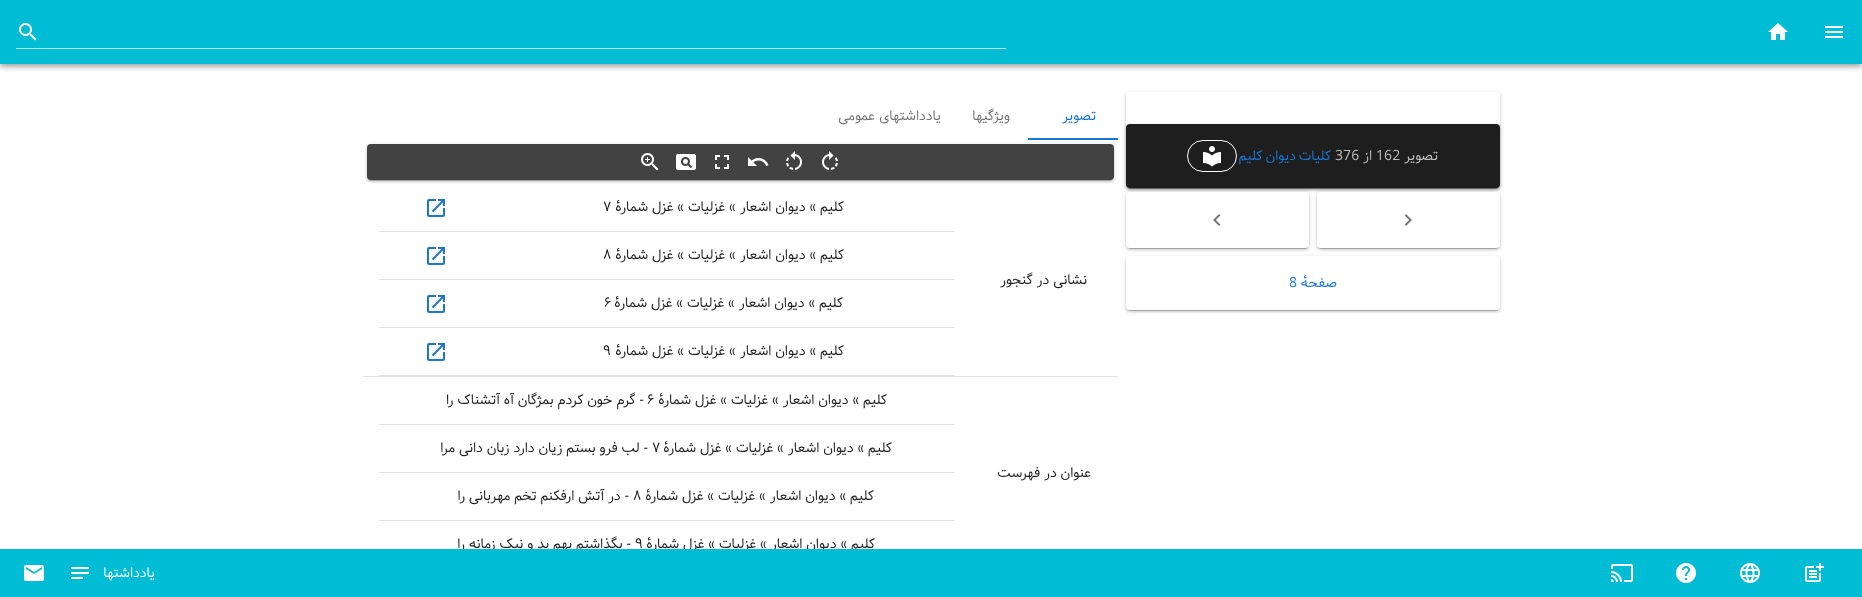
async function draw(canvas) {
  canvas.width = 1862;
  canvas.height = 597;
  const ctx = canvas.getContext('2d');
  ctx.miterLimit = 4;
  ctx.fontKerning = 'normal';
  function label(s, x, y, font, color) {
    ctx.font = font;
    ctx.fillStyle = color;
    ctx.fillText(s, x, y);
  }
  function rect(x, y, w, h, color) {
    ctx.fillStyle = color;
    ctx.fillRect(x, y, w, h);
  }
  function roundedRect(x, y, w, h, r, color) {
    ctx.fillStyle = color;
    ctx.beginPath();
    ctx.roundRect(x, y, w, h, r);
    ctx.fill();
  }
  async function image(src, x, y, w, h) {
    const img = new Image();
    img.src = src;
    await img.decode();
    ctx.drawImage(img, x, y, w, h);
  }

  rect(0, 0, 1862, 597, '#fff');
  ctx.fillStyle = '#0000001f';
  ctx.filter = 'blur(5px)';
  ctx.beginPath();
  ctx.rect(0, 1, 1862, 64);
  ctx.fill();
  ctx.filter = 'none';
  ctx.fillStyle = '#00000024';
  ctx.filter = 'blur(2.5px)';
  ctx.beginPath();
  ctx.rect(0, 4, 1862, 64);
  ctx.fill();
  ctx.filter = 'none';
  ctx.fillStyle = '#00000033';
  ctx.filter = 'blur(2px)';
  ctx.beginPath();
  ctx.rect(1, 3, 1860, 62);
  ctx.fill();
  ctx.filter = 'none';
  rect(0, 0, 1862, 64, '#00bcd4');
  await image('assets/img1.png', 1825, 26, 18, 12);
  await image('assets/img2.png', 1768, 23, 20, 17);
  await image('assets/img3.png', 19, 23, 18, 18);
  rect(16, 48, 990, 1, '#b3ebf2');
  ctx.fillStyle = '#0000001f';
  ctx.filter = 'blur(2.5px)';
  ctx.beginPath();
  ctx.roundRect(1126, 93, 374, 96, 4);
  ctx.fill();
  ctx.filter = 'none';
  ctx.fillStyle = '#00000024';
  ctx.filter = 'blur(1px)';
  ctx.beginPath();
  ctx.roundRect(1126, 94, 374, 96, 4);
  ctx.fill();
  ctx.filter = 'none';
  ctx.fillStyle = '#00000033';
  ctx.filter = 'blur(0.5px)';
  ctx.beginPath();
  ctx.roundRect(1128, 97, 370, 92, 2);
  ctx.fill();
  ctx.filter = 'none';
  roundedRect(1126, 92, 374, 96, 4, '#fff');
  ctx.fillStyle = '#0000001f';
  ctx.filter = 'blur(2.5px)';
  ctx.beginPath();
  ctx.roundRect(1126, 125, 374, 64, 4);
  ctx.fill();
  ctx.filter = 'none';
  ctx.fillStyle = '#00000024';
  ctx.filter = 'blur(1px)';
  ctx.beginPath();
  ctx.roundRect(1126, 126, 374, 64, 4);
  ctx.fill();
  ctx.filter = 'none';
  ctx.fillStyle = '#00000033';
  ctx.filter = 'blur(0.5px)';
  ctx.beginPath();
  ctx.roundRect(1128, 129, 370, 60, 2);
  ctx.fill();
  ctx.filter = 'none';
  roundedRect(1126, 124, 374, 64, 4, '#1e1e1e');
  ctx.letterSpacing = '0.1px';
  ctx.direction = 'rtl';
  label('تصویر', 1438, 160, '14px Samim', '#bcbcbc');
  ctx.direction = 'ltr';
  label('162', 1376, 160, '14px Samim', '#bcbcbc');
  ctx.direction = 'rtl';
  label('از', 1372, 160, '14px Samim', '#bcbcbc');
  ctx.direction = 'ltr';
  label('376', 1335, 160, '14px Samim', '#bcbcbc');
  ctx.wordSpacing = '-1px';
  ctx.direction = 'rtl';
  label('کلیات دیوان کلیم', 1331, 160, '14px Samim', '#1976d2');
  ctx.beginPath();
  ctx.roundRect(1187.5, 140.5, 49, 31, 15.5);
  ctx.strokeStyle = '#fff';
  ctx.stroke();
  await image('assets/img4.png', 1203, 146, 18, 21);
  ctx.fillStyle = '#0000001f';
  ctx.filter = 'blur(2.5px)';
  ctx.beginPath();
  ctx.roundRect(1317, 193, 183, 56, 4);
  ctx.fill();
  ctx.filter = 'none';
  ctx.fillStyle = '#00000024';
  ctx.filter = 'blur(1px)';
  ctx.beginPath();
  ctx.roundRect(1317, 194, 183, 56, 4);
  ctx.fill();
  ctx.filter = 'none';
  ctx.fillStyle = '#00000033';
  ctx.filter = 'blur(0.5px)';
  ctx.beginPath();
  ctx.roundRect(1319, 197, 179, 52, 2);
  ctx.fill();
  ctx.filter = 'none';
  roundedRect(1317, 192, 183, 56, 4, '#fff');
  await image('assets/img5.png', 1404, 214, 8, 12);
  ctx.fillStyle = '#0000001f';
  ctx.filter = 'blur(2.5px)';
  ctx.beginPath();
  ctx.roundRect(1126, 193, 183, 56, 4);
  ctx.fill();
  ctx.filter = 'none';
  ctx.fillStyle = '#00000024';
  ctx.filter = 'blur(1px)';
  ctx.beginPath();
  ctx.roundRect(1126, 194, 183, 56, 4);
  ctx.fill();
  ctx.filter = 'none';
  ctx.fillStyle = '#00000033';
  ctx.filter = 'blur(0.5px)';
  ctx.beginPath();
  ctx.roundRect(1128, 197, 179, 52, 2);
  ctx.fill();
  ctx.filter = 'none';
  roundedRect(1126, 192, 183, 56, 4, '#fff');
  await image('assets/img6.png', 1213, 214, 8, 12);
  ctx.fillStyle = '#0000001f';
  ctx.filter = 'blur(2.5px)';
  ctx.beginPath();
  ctx.roundRect(1126, 257, 374, 54, 4);
  ctx.fill();
  ctx.filter = 'none';
  ctx.fillStyle = '#00000024';
  ctx.filter = 'blur(1px)';
  ctx.beginPath();
  ctx.roundRect(1126, 258, 374, 54, 4);
  ctx.fill();
  ctx.filter = 'none';
  ctx.fillStyle = '#00000033';
  ctx.filter = 'blur(0.5px)';
  ctx.beginPath();
  ctx.roundRect(1128, 261, 370, 50, 2);
  ctx.fill();
  ctx.filter = 'none';
  roundedRect(1126, 256, 374, 54, 4, '#fff');
  ctx.wordSpacing = '0px';
  label('صفحهٔ', 1337, 287, '14px Samim', '#1976d2');
  ctx.direction = 'ltr';
  label('8', 1289, 287, '14px Samim', '#1976d2');
  ctx.letterSpacing = '1.25px';
  ctx.direction = 'rtl';
  label('تصویر', 1096, 120, '14px Samim', '#1976d2');
  label('ویژگیها', 1010, 120, '14px Samim', '#757575');
  ctx.wordSpacing = '-1px';
  label('یادداشتهای عمومی', 941, 120, '14px Samim', '#757575');
  rect(1028, 138, 90, 2, '#1976d2');
  ctx.fillStyle = '#0000001f';
  ctx.filter = 'blur(2.5px)';
  ctx.beginPath();
  ctx.roundRect(367, 145, 747, 36, 4);
  ctx.fill();
  ctx.filter = 'none';
  ctx.fillStyle = '#00000024';
  ctx.filter = 'blur(1px)';
  ctx.beginPath();
  ctx.roundRect(367, 146, 747, 36, 4);
  ctx.fill();
  ctx.filter = 'none';
  ctx.fillStyle = '#00000033';
  ctx.filter = 'blur(0.5px)';
  ctx.beginPath();
  ctx.roundRect(369, 149, 743, 32, 2);
  ctx.fill();
  ctx.filter = 'none';
  roundedRect(367, 144, 747, 36, 4, '#424242');
  await image('assets/img7.png', 822, 151, 16, 19);
  await image('assets/img8.png', 786, 151, 16, 19);
  await image('assets/img9.png', 748, 157, 21, 9);
  await image('assets/img10.png', 715, 155, 14, 14);
  await image('assets/img11.png', 676, 154, 20, 16);
  await image('assets/img12.png', 641, 153, 18, 18);
  rect(363, 376, 755, 1, '#e0e0e0');
  ctx.letterSpacing = '0px';
  ctx.wordSpacing = '0px';
  label('نشانی در گنجور', 1087, 284, '14px Samim', '#212121');
  rect(379, 231, 575, 1, '#e0e0e0');
  label('کلیم » دیوان اشعار » غزلیات » غزل شمارهٔ', 844, 211, '14px Samim', '#212121');
  ctx.direction = 'ltr';
  label('۷', 603, 211, '14px Samim', '#212121');
  await image('assets/img13.png', 427, 199, 18, 18);
  rect(379, 279, 575, 1, '#e0e0e0');
  ctx.direction = 'rtl';
  label('کلیم » دیوان اشعار » غزلیات » غزل شمارهٔ', 844, 259, '14px Samim', '#212121');
  ctx.direction = 'ltr';
  label('۸', 603, 259, '14px Samim', '#212121');
  await image('assets/img13.png', 427, 247, 18, 18);
  rect(379, 327, 575, 1, '#e0e0e0');
  ctx.direction = 'rtl';
  label('کلیم » دیوان اشعار » غزلیات » غزل شمارهٔ', 843, 307, '14px Samim', '#212121');
  ctx.direction = 'ltr';
  label('۶', 604, 307, '14px Samim', '#212121');
  await image('assets/img13.png', 427, 295, 18, 18);
  rect(379, 375, 575, 1, '#e0e0e0');
  ctx.direction = 'rtl';
  label('کلیم » دیوان اشعار » غزلیات » غزل شمارهٔ', 844, 355, '14px Samim', '#212121');
  ctx.direction = 'ltr';
  label('۹', 603, 355, '14px Samim', '#212121');
  await image('assets/img13.png', 427, 343, 18, 18);
  ctx.direction = 'rtl';
  label('عنوان در فهرست', 1091, 477, '14px Samim', '#212121');
  rect(379, 424, 575, 1, '#e0e0e0');
  label('کلیم » دیوان اشعار » غزلیات » غزل شمارهٔ', 887, 404, '14px Samim', '#212121');
  ctx.direction = 'ltr';
  label('۶', 647, 404, '14px Samim', '#212121');
  ctx.direction = 'rtl';
  label('- گرم خون کردم بمژگان آه آتشناک را', 644, 404, '14px Samim', '#212121');
  rect(379, 472, 575, 1, '#e0e0e0');
  label('کلیم » دیوان اشعار » غزلیات » غزل شمارهٔ', 892, 452, '14px Samim', '#212121');
  ctx.direction = 'ltr';
  label('۷', 652, 452, '14px Samim', '#212121');
  ctx.direction = 'rtl';
  label('- لب فرو بستم زیان دارد زبان دانی مرا', 648, 452, '14px Samim', '#212121');
  rect(379, 520, 575, 1, '#e0e0e0');
  label('کلیم » دیوان اشعار » غزلیات » غزل شمارهٔ', 874, 500, '14px Samim', '#212121');
  ctx.direction = 'ltr';
  label('۸', 633, 500, '14px Samim', '#212121');
  ctx.direction = 'rtl';
  label('- در آتش ارفکنم تخم مهربانی را', 629, 500, '14px Samim', '#212121');
  label('کلیم » دیوان اشعار » غزلیات » غزل شمارهٔ', 875, 548, '14px Samim', '#212121');
  ctx.direction = 'ltr';
  label('۹', 635, 548, '14px Samim', '#212121');
  ctx.direction = 'rtl';
  label('- بگذاشتم بهم بد و نیک زمانه را', 631, 548, '14px Samim', '#212121');
  rect(0, 549, 1862, 48, '#00bcd4');
  await image('assets/img14.png', 1805, 563, 19, 19);
  await image('assets/img15.png', 1740, 563, 20, 20);
  await image('assets/img16.png', 1676, 563, 20, 20);
  await image('assets/img17.png', 1611, 564, 22, 18);
  ctx.letterSpacing = '1.25px';
  label('یادداشتها', 155, 577, '14px Samim', '#fff');
  await image('assets/img18.png', 71, 567, 18, 12);
  await image('assets/img19.png', 24, 565, 20, 16);
}

draw(document.querySelector('canvas'));
